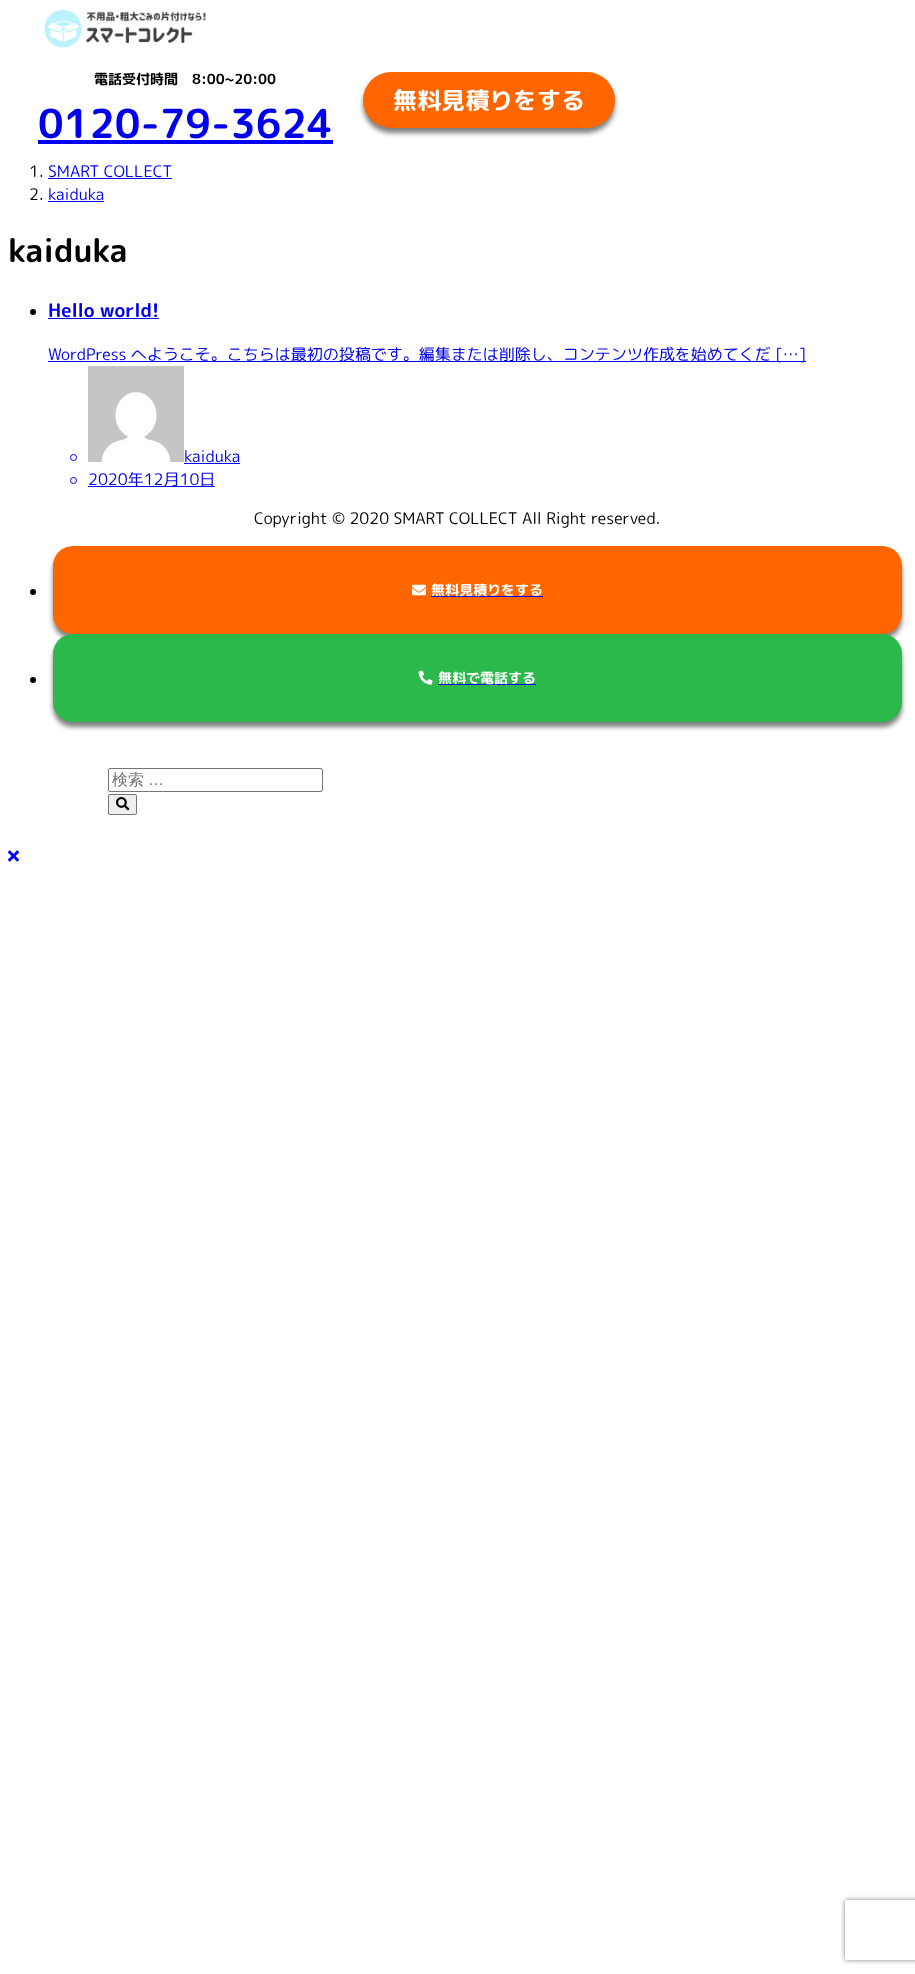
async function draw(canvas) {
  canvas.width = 915;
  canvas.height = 1974;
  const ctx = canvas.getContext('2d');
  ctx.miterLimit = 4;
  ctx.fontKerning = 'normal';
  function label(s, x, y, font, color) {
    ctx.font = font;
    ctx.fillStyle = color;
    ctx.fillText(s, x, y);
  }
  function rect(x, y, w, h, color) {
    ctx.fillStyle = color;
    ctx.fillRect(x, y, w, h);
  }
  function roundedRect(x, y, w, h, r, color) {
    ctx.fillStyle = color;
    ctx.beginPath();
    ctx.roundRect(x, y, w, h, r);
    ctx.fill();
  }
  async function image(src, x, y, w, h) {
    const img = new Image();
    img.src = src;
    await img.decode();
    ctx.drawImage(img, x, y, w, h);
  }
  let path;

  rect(0, 0, 915, 1974, '#fff');
  await image('assets/img1.png', 44, 9, 162, 39);
  label('電話受付時間　8:00~20:00', 94, 84, 'bold 14px "Rounded Mplus 1c Bold"', '#000');
  label('0120-79-3624', 38, 138, 'bold 40px "Rounded Mplus 1c Bold"', '#00e');
  rect(38, 140, 295, 4, '#00e');
  ctx.fillStyle = '#00000080';
  ctx.filter = 'blur(2.5px)';
  ctx.beginPath();
  ctx.roundRect(363, 77, 252, 56, 28);
  ctx.fill();
  ctx.filter = 'none';
  roundedRect(363, 72, 252, 56, 28, '#f60');
  label('無料見積りをする', 393, 109, 'bold 24px "Rounded Mplus 1c Bold"', '#fff');
  label('1.', 29, 177, '16px "Rounded Mplus 1c"', '#000');
  label('SMART COLLECT', 48, 177, '16px "Rounded Mplus 1c"', '#00e');
  rect(48, 178, 124, 1, '#00e');
  label('2.', 29, 200, '16px "Rounded Mplus 1c"', '#000');
  label('kaiduka', 48, 200, '16px "Rounded Mplus 1c"', '#00e');
  rect(48, 201, 56, 1, '#00e');
  label('kaiduka', 8, 262, 'bold 32px "Rounded Mplus 1c Bold"', '#000');
  ctx.beginPath();
  ctx.arc(33, 312, 3, 0, 2 * Math.PI);
  ctx.fill();
  label('Hello world!', 48, 317, 'bold 18.75px "Rounded Mplus 1c Bold"', '#00e');
  rect(48, 318, 111, 1, '#00e');
  rect(48, 361, 758, 1, '#00e');
  label('WordPress へようこそ。こちらは最初の投稿です。編集または削除し、コンテンツ作成を始めてくだ […]', 48, 360, '16px "Rounded Mplus 1c"', '#00e');
  ctx.beginPath();
  ctx.arc(73.5, 457.5, 3, 0, 2 * Math.PI);
  ctx.strokeStyle = '#00e';
  ctx.stroke();
  await image('assets/img2.png', 88, 366, 96, 96);
  label('kaiduka', 184, 462, '16px "Rounded Mplus 1c"', '#00e');
  rect(184, 463, 56, 1, '#00e');
  ctx.beginPath();
  ctx.arc(73.5, 480.5, 3, 0, 2 * Math.PI);
  ctx.stroke();
  rect(88, 486, 127, 1, '#00e');
  label('2020年12月10日', 88, 485, '16px "Rounded Mplus 1c"', '#00e');
  label('Copyright © 2020 SMART COLLECT All Right reserved.', 254, 524, '16px "Rounded Mplus 1c"', '#000');
  ctx.beginPath();
  ctx.arc(33, 592, 3, 0, 2 * Math.PI);
  ctx.fill();
  ctx.fillStyle = '#00000080';
  ctx.filter = 'blur(2.5px)';
  ctx.beginPath();
  ctx.roundRect(53, 551, 849, 88, 20);
  ctx.fill();
  ctx.filter = 'none';
  roundedRect(53, 546, 849, 88, 20, '#f60');
  await image('assets/img3.png', 412, 584, 14, 12);
  rect(431, 596, 112, 1, '#00e');
  label('無料見積りをする', 431, 595, 'bold 14px "Rounded Mplus 1c Bold"', '#fff');
  ctx.fillStyle = '#000';
  ctx.beginPath();
  ctx.arc(33, 680, 3, 0, 2 * Math.PI);
  ctx.fill();
  ctx.fillStyle = '#00000080';
  ctx.filter = 'blur(2.5px)';
  ctx.beginPath();
  ctx.roundRect(53, 639, 849, 88, 20);
  ctx.fill();
  ctx.filter = 'none';
  roundedRect(53, 634, 849, 88, 20, '#2cb94c');
  await image('assets/img4.png', 418, 670, 15, 15);
  rect(438, 684, 98, 1, '#00e');
  label('無料で電話する', 438, 683, 'bold 14px "Rounded Mplus 1c Bold"', '#fff');
  ctx.beginPath();
  ctx.roundRect(108.5, 768.5, 214, 23, 1.5);
  ctx.strokeStyle = '#767676';
  ctx.stroke();
  label('検索', 112, 785, '500 16px WenQuanYi Zen Hei', '#757575');
  label('…', 148, 785, '16px Liberation Sans', '#757575');
  ctx.fillStyle = '#efefef';
  ctx.beginPath();
  ctx.roundRect(108.5, 794.5, 28, 20, 1.5);
  ctx.fill();
  ctx.stroke();
  await image('assets/img5.png', 116, 797, 14, 14);
  await image('assets/img6.png', 8, 850, 11, 12);
  ctx.save();
  path = new Path2D('M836 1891H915V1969H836ZM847 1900H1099C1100 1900 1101 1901 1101 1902V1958C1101 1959 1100 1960 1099 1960H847C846 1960 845 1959 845 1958V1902C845 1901 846 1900 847 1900Z');
  ctx.clip(path, 'evenodd');
  ctx.fillStyle = '#808080';
  ctx.filter = 'blur(2.5px)';
  ctx.beginPath();
  ctx.roundRect(845, 1900, 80, 60, 2);
  ctx.fill();
  ctx.filter = 'none';
  ctx.restore();
}

draw(document.querySelector('canvas'));
